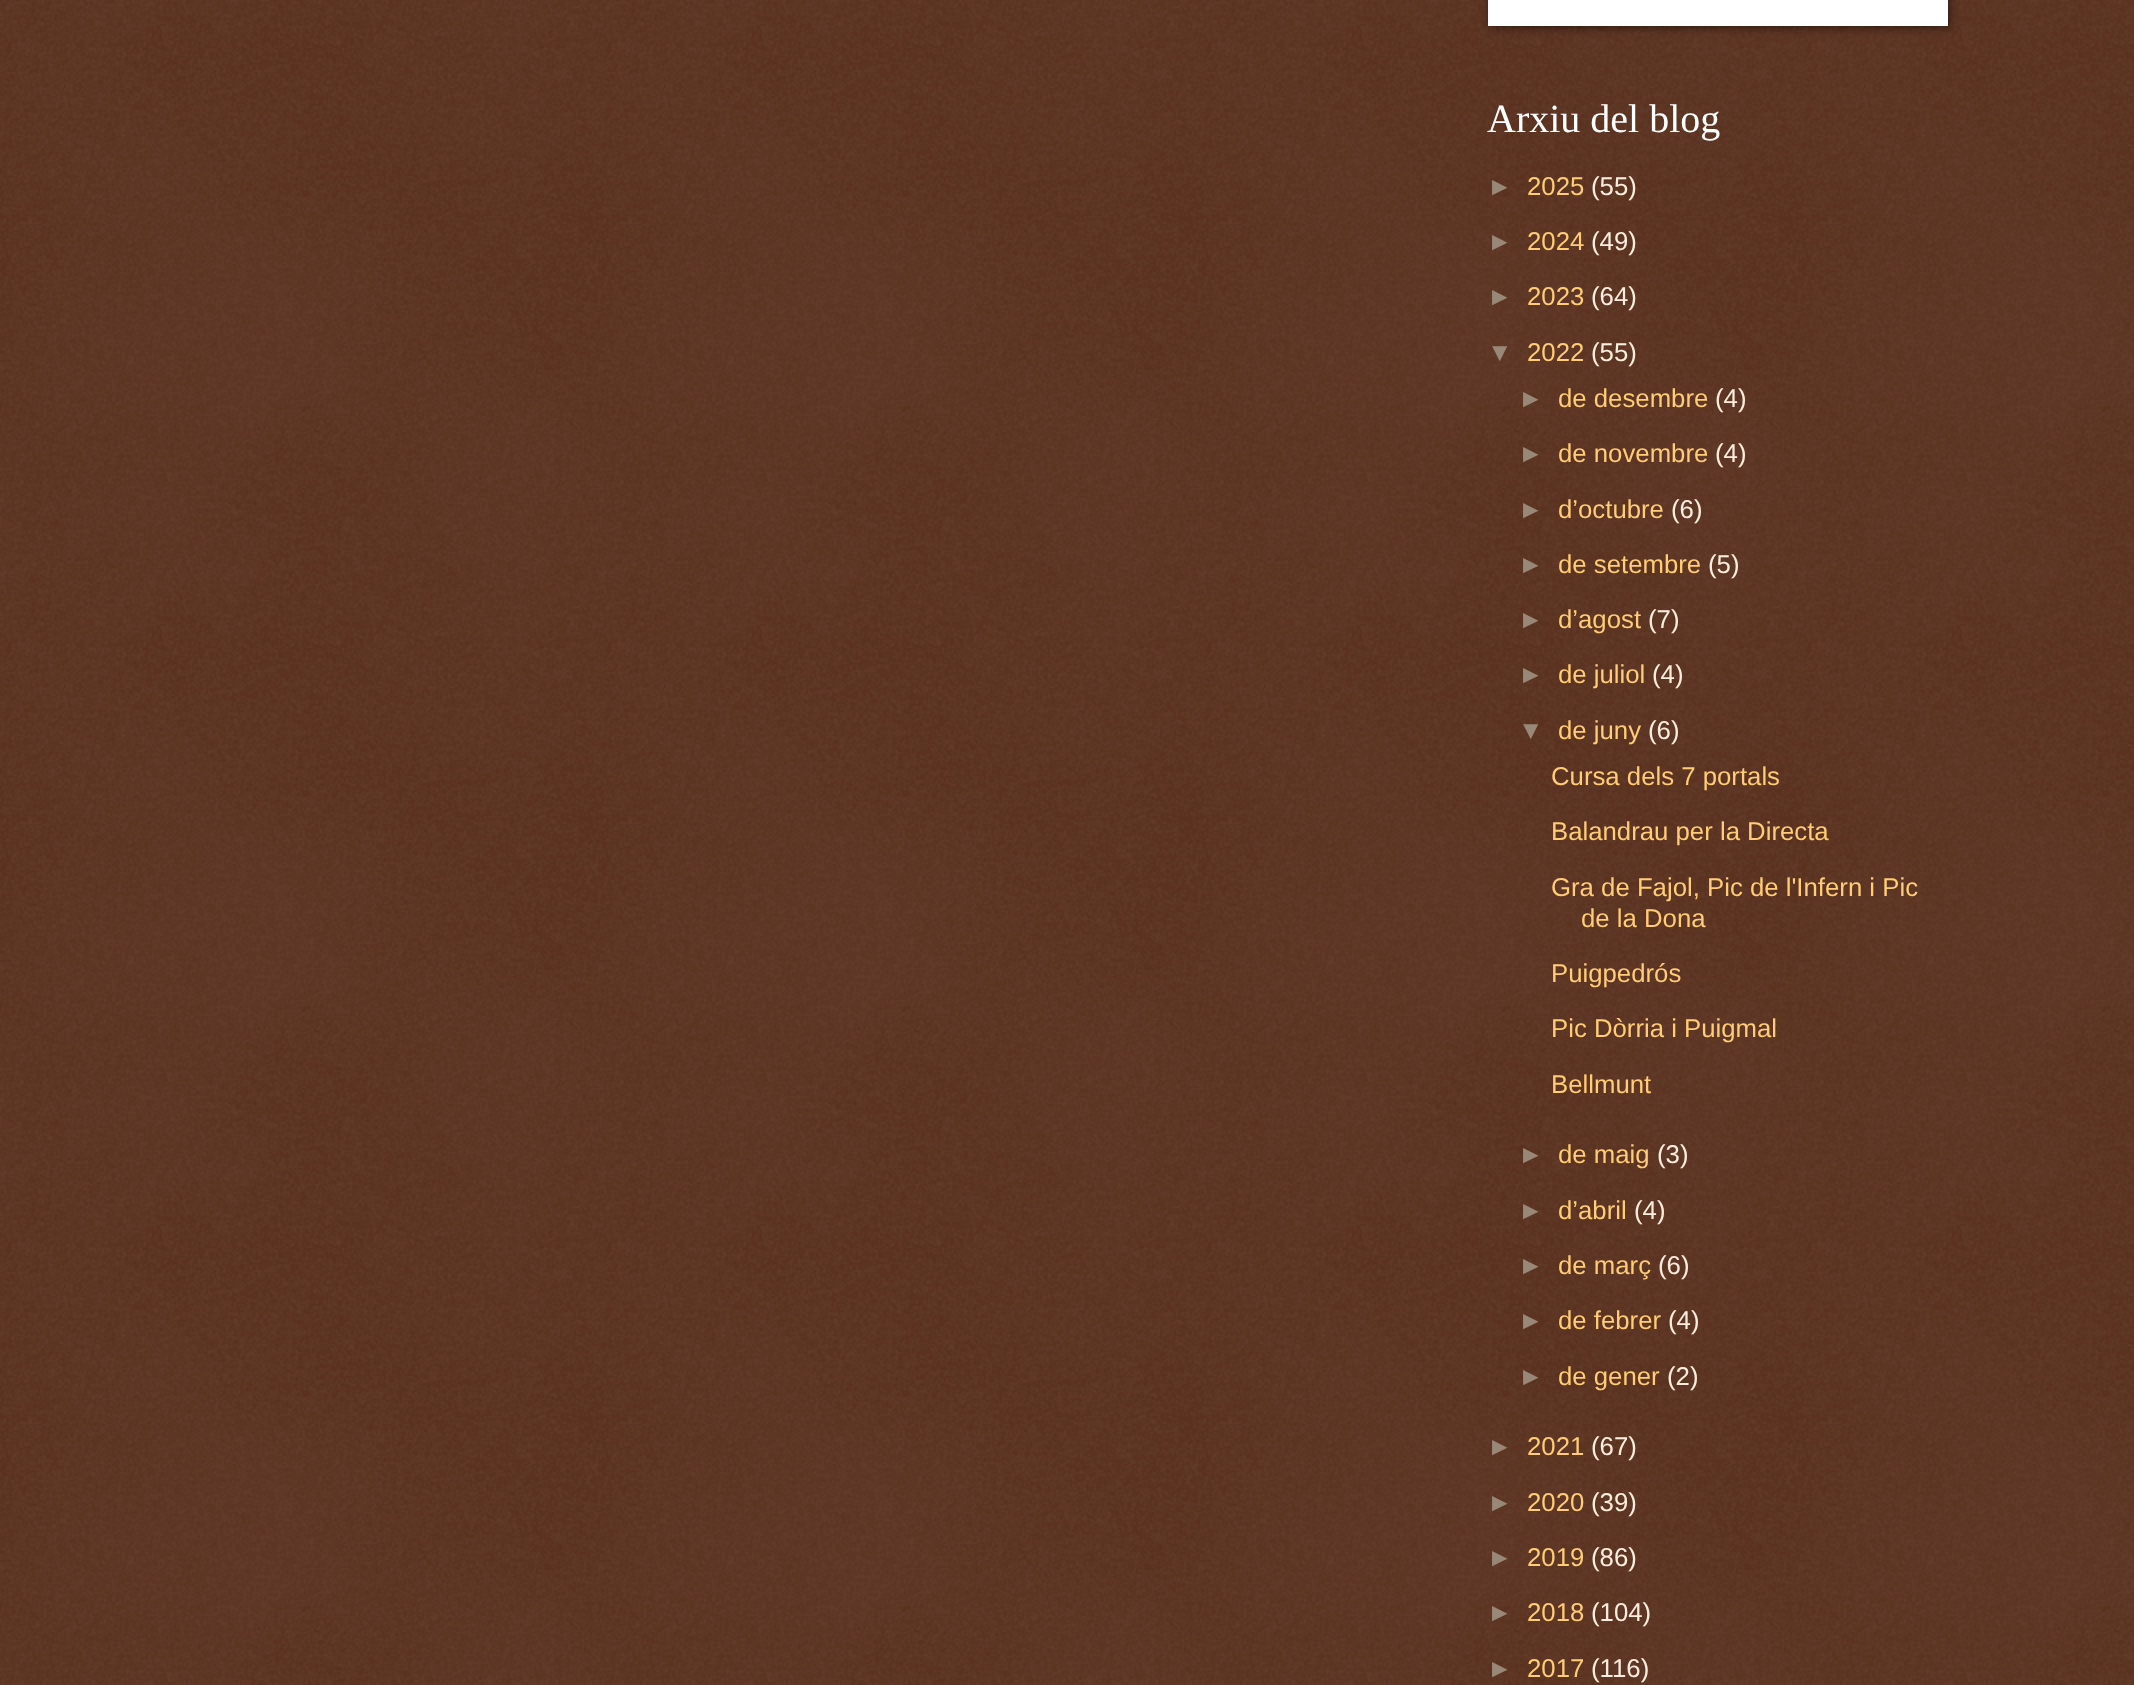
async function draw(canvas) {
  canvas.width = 2134;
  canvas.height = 1685;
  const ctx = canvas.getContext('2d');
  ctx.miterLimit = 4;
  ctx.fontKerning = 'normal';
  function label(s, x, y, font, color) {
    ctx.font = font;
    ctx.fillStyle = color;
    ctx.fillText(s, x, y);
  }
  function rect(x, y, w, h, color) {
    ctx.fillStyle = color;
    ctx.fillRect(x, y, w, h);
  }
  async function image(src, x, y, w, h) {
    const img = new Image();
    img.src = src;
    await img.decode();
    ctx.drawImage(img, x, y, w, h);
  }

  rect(0, 0, 2134, 1685, '#441500');
  await image('assets/img1.png', 0, 0, 2134, 1685);
  ctx.fillStyle = '#00000080';
  ctx.filter = 'blur(5px)';
  ctx.beginPath();
  ctx.rect(1490, -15, 460, 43);
  ctx.fill();
  ctx.filter = 'none';
  rect(1488, 0, 460, 26, '#fff');
  label('Arxiu del blog', 1487, 132, '40px Liberation Serif', '#fff');
  label('►', 1487, 195, '25.75px Liberation Sans', '#987');
  label('2025', 1527, 195, '25.75px Liberation Sans', '#fc7');
  label('(55)', 1591, 195, '25.75px Liberation Sans', '#fed');
  label('►', 1487, 250, '25.75px Liberation Sans', '#987');
  label('2024', 1527, 250, '25.75px Liberation Sans', '#fc7');
  label('(49)', 1591, 250, '25.75px Liberation Sans', '#fed');
  label('►', 1487, 305, '25.75px Liberation Sans', '#987');
  label('2023', 1527, 305, '25.75px Liberation Sans', '#fc7');
  label('(64)', 1591, 305, '25.75px Liberation Sans', '#fed');
  label('▼', 1487, 361, '25.75px Liberation Sans', '#987');
  label('2022', 1527, 361, '25.75px Liberation Sans', '#fc7');
  label('(55)', 1591, 361, '25.75px Liberation Sans', '#fed');
  label('►', 1518, 407, '25.75px Liberation Sans', '#987');
  label('de desembre', 1558, 407, '25.75px Liberation Sans', '#fc7');
  label('(4)', 1715, 407, '25.75px Liberation Sans', '#fed');
  label('►', 1518, 462, '25.75px Liberation Sans', '#987');
  label('de novembre', 1558, 462, '25.75px Liberation Sans', '#fc7');
  label('(4)', 1715, 462, '25.75px Liberation Sans', '#fed');
  label('►', 1518, 518, '25.75px Liberation Sans', '#987');
  label('d’octubre', 1558, 518, '25.75px Liberation Sans', '#fc7');
  label('(6)', 1671, 518, '25.75px Liberation Sans', '#fed');
  label('►', 1518, 573, '25.75px Liberation Sans', '#987');
  label('de setembre', 1558, 573, '25.75px Liberation Sans', '#fc7');
  label('(5)', 1708, 573, '25.75px Liberation Sans', '#fed');
  label('►', 1518, 628, '25.75px Liberation Sans', '#987');
  label('d’agost', 1558, 628, '25.75px Liberation Sans', '#fc7');
  label('(7)', 1648, 628, '25.75px Liberation Sans', '#fed');
  label('►', 1518, 683, '25.75px Liberation Sans', '#987');
  label('de juliol', 1558, 683, '25.75px Liberation Sans', '#fc7');
  label('(4)', 1652, 683, '25.75px Liberation Sans', '#fed');
  label('▼', 1518, 739, '25.75px Liberation Sans', '#987');
  label('de juny', 1558, 739, '25.75px Liberation Sans', '#fc7');
  label('(6)', 1648, 739, '25.75px Liberation Sans', '#fed');
  label('Cursa dels 7 portals', 1551, 785, '25.75px Liberation Sans', '#fc7');
  label('Balandrau per la Directa', 1551, 840, '25.75px Liberation Sans', '#fc7');
  label('Gra de Fajol, Pic de l\'Infern i Pic', 1551, 896, '25.75px Liberation Sans', '#fc7');
  label('de la Dona', 1581, 927, '25.75px Liberation Sans', '#fc7');
  label('Puigpedrós', 1551, 982, '25.75px Liberation Sans', '#fc7');
  label('Pic Dòrria i Puigmal', 1551, 1037, '25.75px Liberation Sans', '#fc7');
  label('Bellmunt', 1551, 1093, '25.75px Liberation Sans', '#fc7');
  label('►', 1518, 1163, '25.75px Liberation Sans', '#987');
  label('de maig', 1558, 1163, '25.75px Liberation Sans', '#fc7');
  label('(3)', 1657, 1163, '25.75px Liberation Sans', '#fed');
  label('►', 1518, 1219, '25.75px Liberation Sans', '#987');
  label('d’abril', 1558, 1219, '25.75px Liberation Sans', '#fc7');
  label('(4)', 1634, 1219, '25.75px Liberation Sans', '#fed');
  label('►', 1518, 1274, '25.75px Liberation Sans', '#987');
  label('de març', 1558, 1274, '25.75px Liberation Sans', '#fc7');
  label('(6)', 1658, 1274, '25.75px Liberation Sans', '#fed');
  label('►', 1518, 1329, '25.75px Liberation Sans', '#987');
  label('de febrer', 1558, 1329, '25.75px Liberation Sans', '#fc7');
  label('(4)', 1668, 1329, '25.75px Liberation Sans', '#fed');
  label('►', 1518, 1385, '25.75px Liberation Sans', '#987');
  label('de gener', 1558, 1385, '25.75px Liberation Sans', '#fc7');
  label('(2)', 1667, 1385, '25.75px Liberation Sans', '#fed');
  label('►', 1487, 1455, '25.75px Liberation Sans', '#987');
  label('2021', 1527, 1455, '25.75px Liberation Sans', '#fc7');
  label('(67)', 1591, 1455, '25.75px Liberation Sans', '#fed');
  label('►', 1487, 1511, '25.75px Liberation Sans', '#987');
  label('2020', 1527, 1511, '25.75px Liberation Sans', '#fc7');
  label('(39)', 1591, 1511, '25.75px Liberation Sans', '#fed');
  label('►', 1487, 1566, '25.75px Liberation Sans', '#987');
  label('2019', 1527, 1566, '25.75px Liberation Sans', '#fc7');
  label('(86)', 1591, 1566, '25.75px Liberation Sans', '#fed');
  label('►', 1487, 1621, '25.75px Liberation Sans', '#987');
  label('2018', 1527, 1621, '25.75px Liberation Sans', '#fc7');
  label('(104)', 1591, 1621, '25.75px Liberation Sans', '#fed');
  label('►', 1487, 1677, '25.75px Liberation Sans', '#987');
  label('2017', 1527, 1677, '25.75px Liberation Sans', '#fc7');
  label('(116)', 1591, 1677, '25.75px Liberation Sans', '#fed');
}

draw(document.querySelector('canvas'));
